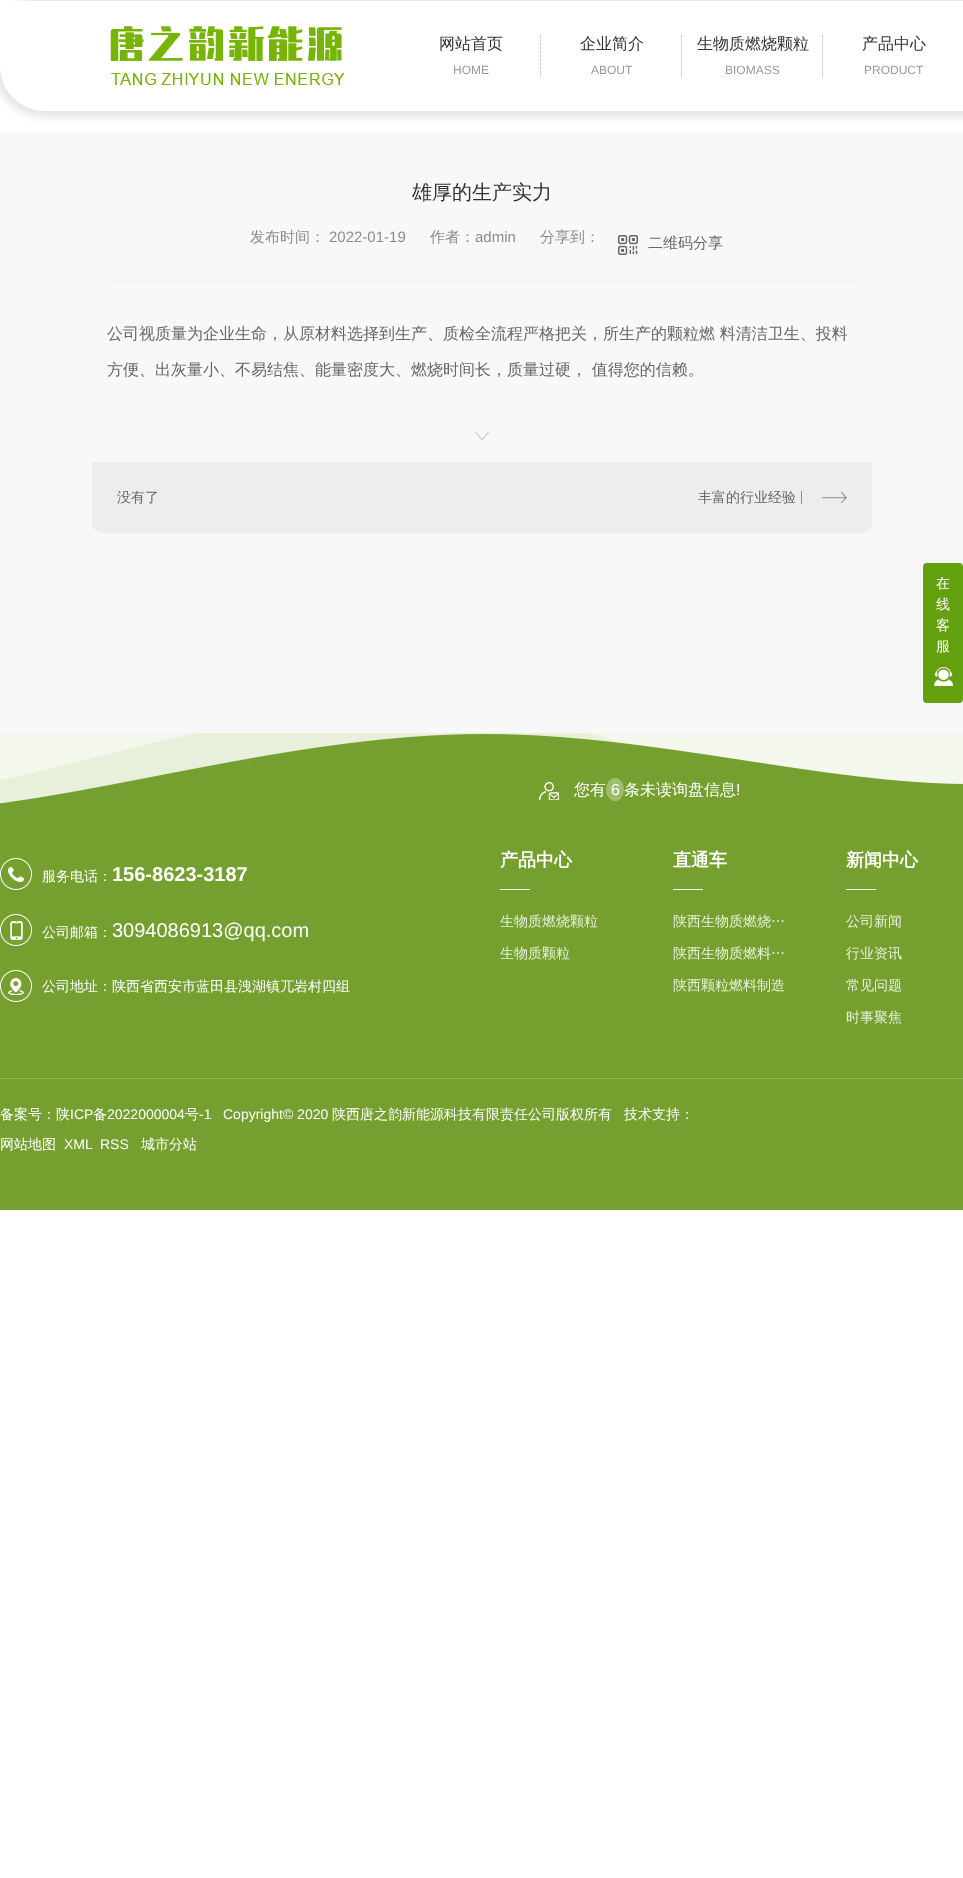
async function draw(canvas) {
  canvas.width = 963;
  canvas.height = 1878;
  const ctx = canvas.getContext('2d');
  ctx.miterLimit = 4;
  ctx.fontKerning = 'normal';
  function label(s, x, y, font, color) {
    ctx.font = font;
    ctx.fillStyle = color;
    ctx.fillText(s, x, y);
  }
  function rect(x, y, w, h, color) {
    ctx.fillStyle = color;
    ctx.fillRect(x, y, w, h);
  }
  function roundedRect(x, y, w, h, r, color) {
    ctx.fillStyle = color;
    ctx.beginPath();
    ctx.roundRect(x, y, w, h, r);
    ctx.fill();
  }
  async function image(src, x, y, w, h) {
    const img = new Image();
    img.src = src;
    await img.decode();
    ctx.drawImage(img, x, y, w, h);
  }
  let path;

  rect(0, 0, 963, 1878, '#fff');
  ctx.fillStyle = '#a6a6a64d';
  ctx.filter = 'blur(4px)';
  ctx.beginPath();
  ctx.roundRect(-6, -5, 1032, 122, 51);
  ctx.fill();
  ctx.filter = 'none';
  ctx.fillStyle = '#fff';
  path = new Path2D('M0 1H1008V66C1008 91 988 111 963 111H45C20 111 0 91 0 66Z');
  ctx.fill(path);
  await image('assets/img1.png', 110, 26, 235, 59);
  await image('assets/img2.png', 540, 35, 1, 42);
  label('网站首页', 439, 49, '500 16px WenQuanYi Zen Hei', '#333');
  label('HOME', 453, 74, '12px Liberation Sans', '#999');
  await image('assets/img2.png', 681, 35, 1, 42);
  label('企业简介', 580, 49, '500 16px WenQuanYi Zen Hei', '#333');
  label('ABOUT', 591, 74, '12px Liberation Sans', '#999');
  await image('assets/img2.png', 822, 35, 1, 42);
  label('生物质燃烧颗粒', 697, 49, '500 16px WenQuanYi Zen Hei', '#333');
  label('BIOMASS', 725, 74, '12px Liberation Sans', '#999');
  label('产品中心', 862, 49, '500 16px WenQuanYi Zen Hei', '#333');
  label('PRODUCT', 864, 74, '12px Liberation Sans', '#999');
  rect(0, 132, 963, 601, '#f8f8f8');
  label('雄厚的生产实力', 412, 199, '500 20px WenQuanYi Zen Hei', '#333');
  rect(107, 281, 750, 1, '#f2f0f0');
  label('发布时间：', 250, 242, '500 15px WenQuanYi Zen Hei', '#8c8c8c');
  label('2022-01-19', 329, 242, '15px Liberation Sans', '#8c8c8c');
  label('作者：', 430, 242, '500 15px WenQuanYi Zen Hei', '#8c8c8c');
  label('admin', 475, 242, '15px Liberation Sans', '#8c8c8c');
  label('分享到：', 540, 242, '500 15px WenQuanYi Zen Hei', '#8c8c8c');
  await image('assets/img3.png', 618, 235, 20, 20);
  label('二维码分享', 648, 248, '500 15px WenQuanYi Zen Hei', '#666');
  label('公司视质量为企业生命，从原材料选择到生产、质检全流程严格把关，所生产的颗粒燃 料清洁卫生、投料', 107, 339, '500 16px WenQuanYi Zen Hei', '#666');
  label('方便、出灰量小、不易结焦、能量密度大、燃烧时间长，质量过硬， 值得您的信赖。', 107, 375, '500 16px WenQuanYi Zen Hei', '#666');
  await image('assets/img4.png', 475, 432, 14, 8);
  ctx.fillStyle = '#ededed';
  ctx.beginPath();
  ctx.roundRect(92, 462, 390, 71, [0, 0, 0, 10]);
  ctx.fill();
  label('没有了', 117, 502, '500 14px WenQuanYi Zen Hei', '#666');
  ctx.fillStyle = '#ededed';
  ctx.beginPath();
  ctx.roundRect(482, 462, 390, 71, [0, 0, 10, 0]);
  ctx.fill();
  await image('assets/img5.png', 801, 491, 46, 13);
  label('丰富的行业经验', 698, 502, '500 14px WenQuanYi Zen Hei', '#666');
  roundedRect(923, 563, 40, 140, 4, '#63a00e');
  label('在', 936, 588, '500 14px WenQuanYi Zen Hei', '#fff');
  label('线', 936, 609, '500 14px WenQuanYi Zen Hei', '#fff');
  label('客', 936, 630, '500 14px WenQuanYi Zen Hei', '#fff');
  label('服', 936, 651, '500 14px WenQuanYi Zen Hei', '#fff');
  await image('assets/img6.png', 934, 667, 19, 19);
  await image('assets/img7.png', 0, 733, 963, 477);
  await image('assets/img8.png', 539, 782, 20, 18);
  label('您有', 574, 795, '500 16px WenQuanYi Zen Hei', '#fff');
  ctx.fillStyle = '#9fbd6f';
  ctx.beginPath();
  ctx.ellipse(615, 789.5, 9, 11.5, 0, 0, 2 * Math.PI);
  ctx.fill();
  label('6', 611, 795, '16px Liberation Sans', '#fff');
  label('条未读询盘信息', 624, 795, '500 16px WenQuanYi Zen Hei', '#fff');
  label('!', 736, 795, '16px Liberation Sans', '#fff');
  await image('assets/img9.png', 0, 858, 32, 32);
  label('服务电话：', 42, 881, '500 14px WenQuanYi Zen Hei', '#fff');
  label('156-8623-3187', 112, 881, 'bold 20px Liberation Sans', '#fff');
  await image('assets/img10.png', 0, 914, 32, 32);
  label('公司邮箱：', 42, 937, '500 14px WenQuanYi Zen Hei', '#fff');
  label('3094086913@qq.com', 112, 937, '20px Liberation Sans', '#fff');
  await image('assets/img11.png', 0, 970, 32, 32);
  label('公司地址：陕西省西安市蓝田县洩湖镇兀岩村四组', 42, 991, '500 14px WenQuanYi Zen Hei', '#fff');
  label('产品中心', 500, 866, 'bold 18px WenQuanYi Zen Hei', '#fff');
  rect(500, 889, 30, 1, '#fff');
  label('生物质燃烧颗粒', 500, 926, '500 14px WenQuanYi Zen Hei', '#e6f1d6');
  label('生物质颗粒', 500, 958, '500 14px WenQuanYi Zen Hei', '#e6f1d6');
  label('直通车', 673, 866, 'bold 18px WenQuanYi Zen Hei', '#fff');
  rect(673, 889, 30, 1, '#fff');
  label('陕西生物质燃烧…', 673, 926, '500 14px WenQuanYi Zen Hei', '#e6f1d6');
  label('陕西生物质燃料…', 673, 958, '500 14px WenQuanYi Zen Hei', '#e6f1d6');
  label('陕西颗粒燃料制造', 673, 990, '500 14px WenQuanYi Zen Hei', '#e6f1d6');
  label('新闻中心', 846, 866, 'bold 18px WenQuanYi Zen Hei', '#fff');
  rect(846, 889, 30, 1, '#fff');
  label('公司新闻', 846, 926, '500 14px WenQuanYi Zen Hei', '#e6f1d6');
  label('行业资讯', 846, 958, '500 14px WenQuanYi Zen Hei', '#e6f1d6');
  label('常见问题', 846, 990, '500 14px WenQuanYi Zen Hei', '#e6f1d6');
  label('时事聚焦', 846, 1022, '500 14px WenQuanYi Zen Hei', '#e6f1d6');
  rect(0, 1078, 963, 1, '#91b359');
  label('备案号：陕', 0, 1119, '500 14px WenQuanYi Zen Hei', '#fff');
  label('ICP', 70, 1119, '14px Liberation Sans', '#fff');
  label('备', 93, 1119, '500 14px WenQuanYi Zen Hei', '#fff');
  label('2022000004', 107, 1119, '14px Liberation Sans', '#fff');
  label('号', 185, 1119, '500 14px WenQuanYi Zen Hei', '#fff');
  label('-1', 199, 1119, '14px Liberation Sans', '#fff');
  label('Copyright© 2020', 223, 1119, '14px Liberation Sans', '#fff');
  label('陕西唐之韵新能源科技有限责任公司版权所有', 332, 1119, '500 14px WenQuanYi Zen Hei', '#fff');
  label('技术支持：', 624, 1119, '500 14px WenQuanYi Zen Hei', '#fff');
  label('网站地图', 0, 1149, '500 14px WenQuanYi Zen Hei', '#fff');
  label('XML', 64, 1149, '14px Liberation Sans', '#fff');
  label('RSS', 100, 1149, '14px Liberation Sans', '#fff');
  label('城市分站', 141, 1149, '500 14px WenQuanYi Zen Hei', '#fff');
}

draw(document.querySelector('canvas'));
